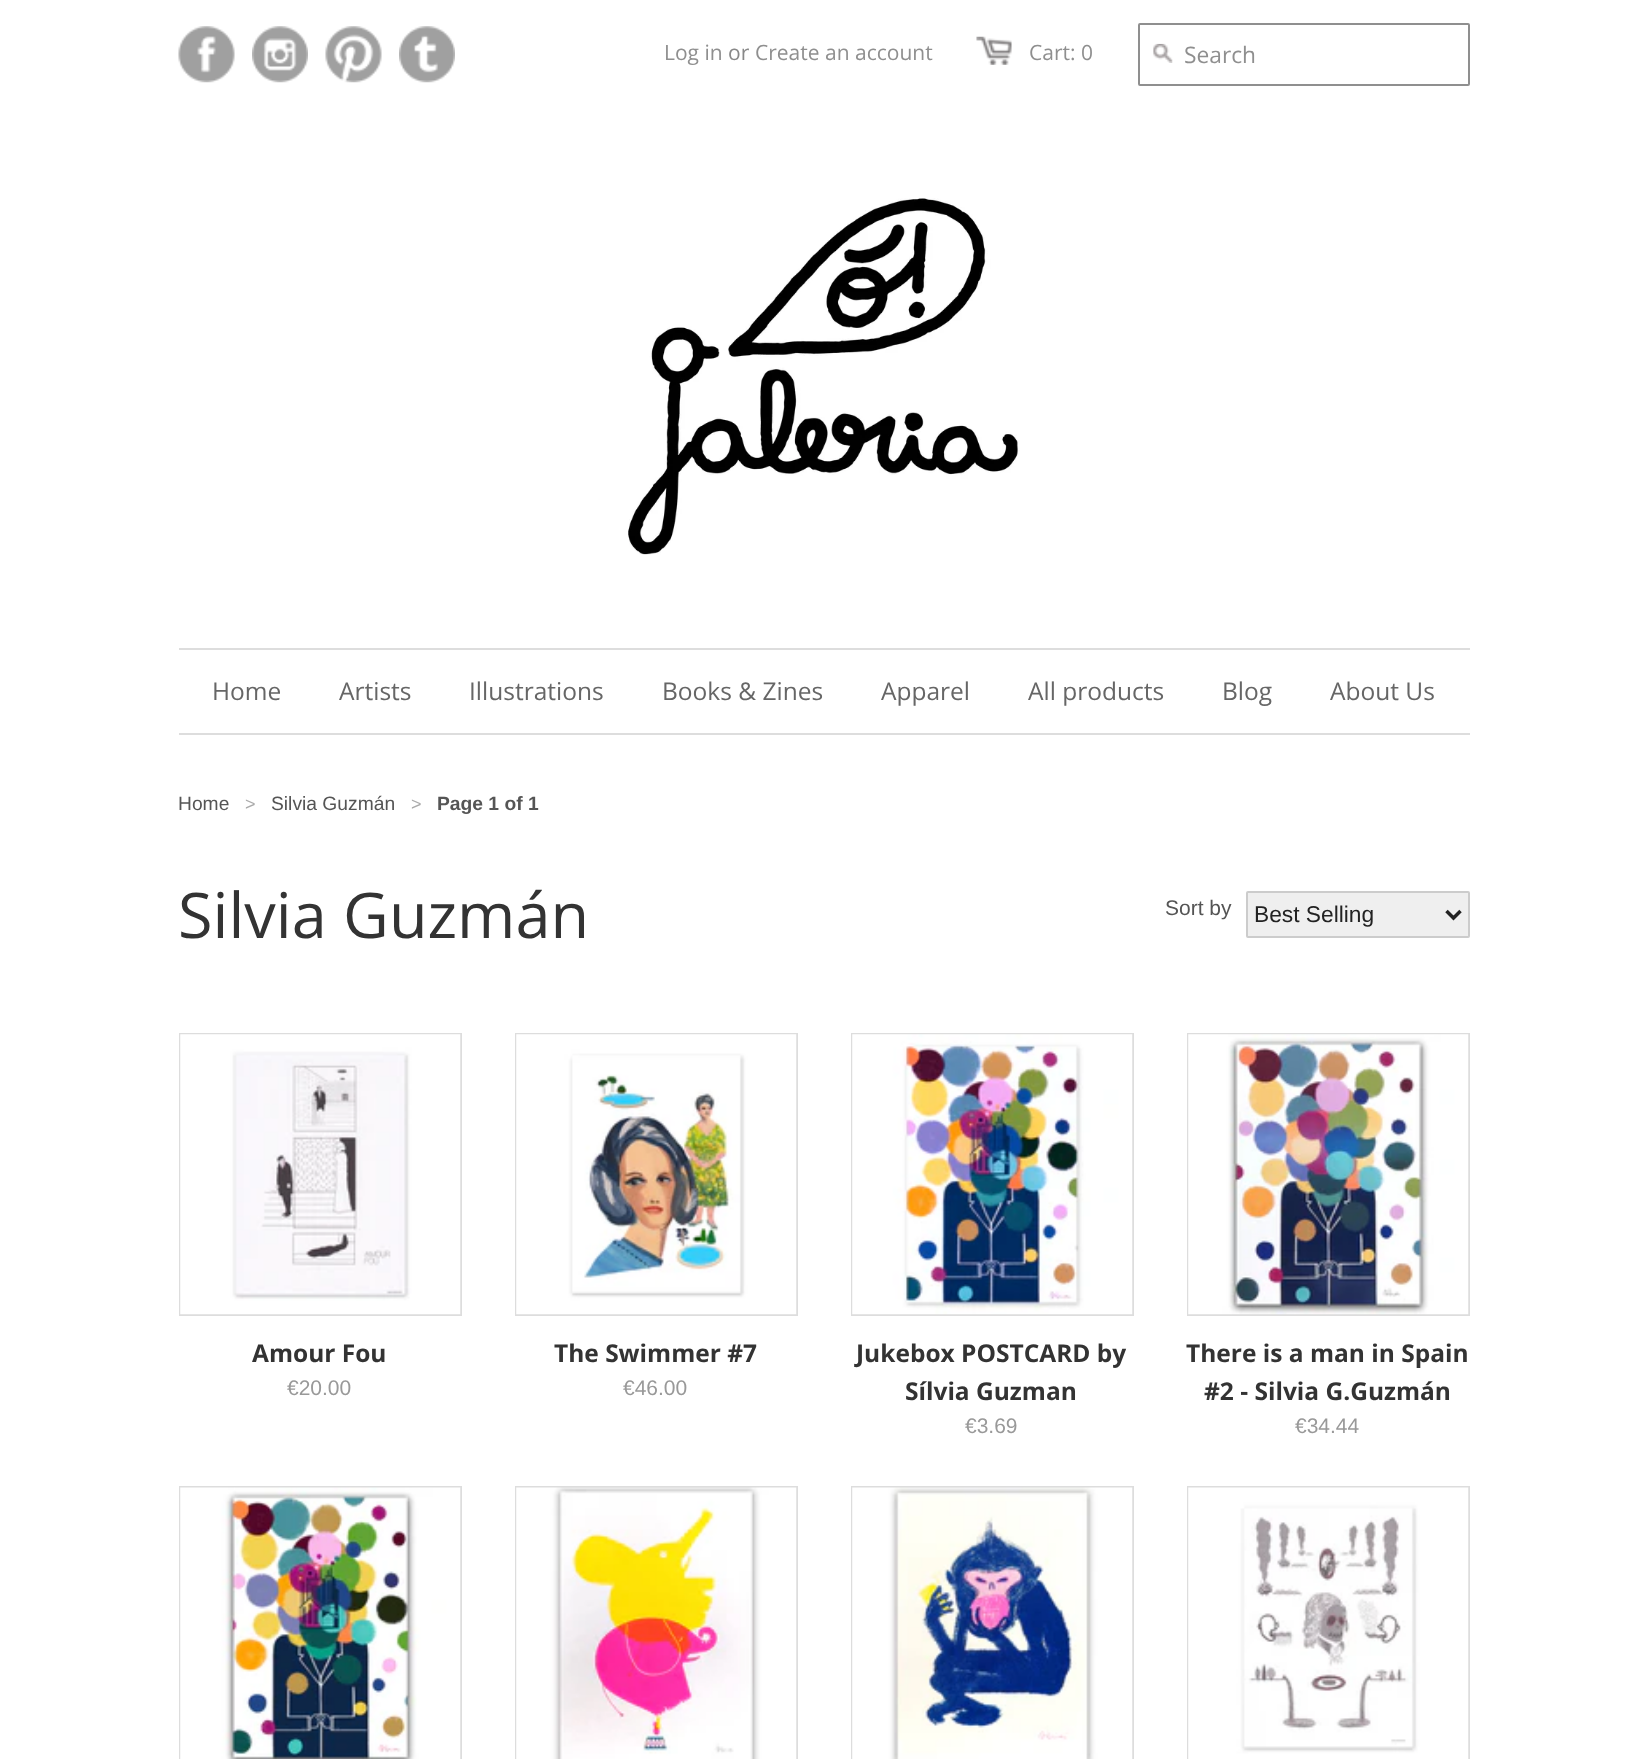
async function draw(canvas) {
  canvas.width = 1646;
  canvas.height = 1759;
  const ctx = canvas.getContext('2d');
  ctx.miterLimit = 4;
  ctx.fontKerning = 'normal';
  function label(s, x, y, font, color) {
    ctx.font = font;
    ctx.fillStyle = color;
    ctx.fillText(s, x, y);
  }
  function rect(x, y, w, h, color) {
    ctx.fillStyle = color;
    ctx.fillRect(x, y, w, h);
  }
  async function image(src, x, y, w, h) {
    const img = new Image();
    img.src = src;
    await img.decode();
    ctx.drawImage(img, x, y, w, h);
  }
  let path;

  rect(0, 0, 1646, 1759, '#fff');
  await image('assets/img1.png', 178, 26, 57, 57);
  await image('assets/img2.png', 252, 26, 56, 57);
  await image('assets/img3.png', 325, 26, 57, 57);
  await image('assets/img4.png', 399, 26, 56, 57);
  label('Log in', 664, 60, '21px Open Sans', '#8f8f8f');
  label('or', 728, 60, '21px Open Sans', '#888');
  label('Create an account', 755, 60, '21px Open Sans', '#8f8f8f');
  await image('assets/img5.png', 976, 36, 36, 29);
  label('Cart: 0', 1029, 60, '21px Open Sans', '#8f8f8f');
  ctx.beginPath();
  ctx.roundRect(1139, 24, 330, 61, 1);
  ctx.strokeStyle = '#8f8f8f';
  ctx.lineWidth = 2;
  ctx.stroke();
  await image('assets/img6.png', 1153, 43, 20, 20);
  label('Search', 1184, 63, '22.75px Open Sans', '#8f8f8f');
  await image('assets/img7.png', 628, 198, 392, 357);
  rect(179, 648, 1291, 2, '#ddd');
  rect(179, 733, 1291, 2, '#ddd');
  label('Home', 212, 700, '24.5px Open Sans', '#666');
  label('Artists', 339, 700, '24.5px Open Sans', '#666');
  label('Illustrations', 469, 700, '24.5px Open Sans', '#666');
  label('Books & Zines', 662, 700, '24.5px Open Sans', '#666');
  label('Apparel', 881, 700, '24.5px Open Sans', '#666');
  label('All products', 1028, 700, '24.5px Open Sans', '#666');
  label('Blog', 1222, 700, '24.5px Open Sans', '#666');
  label('About Us', 1330, 700, '24.5px Open Sans', '#666');
  label('Home', 178, 810, '19.25px Liberation Sans', '#555');
  label('>', 245, 810, '18px Liberation Sans', '#aaa');
  label('Silvia Guzmán', 271, 810, '19.25px Liberation Sans', '#555');
  label('>', 411, 810, '18px Liberation Sans', '#aaa');
  label('Page 1 of 1', 437, 810, 'bold 19.25px Liberation Sans', '#555');
  label('Silvia Guzmán', 178, 938, '63px Open Sans', '#333');
  label('Sort by', 1165, 915, '21px Liberation Sans', '#555');
  ctx.fillStyle = '#efefef';
  ctx.beginPath();
  ctx.roundRect(1247, 892, 222, 45, 1);
  ctx.fill();
  ctx.strokeStyle = '#ccc';
  ctx.stroke();
  path = new Path2D('M1446.5 911L1453.5 918L1460.5 911');
  ctx.strokeStyle = '#222';
  ctx.lineWidth = 3.5;
  ctx.stroke(path);
  label('Best Selling', 1254, 922, '22.75px Liberation Sans', '#222');
  ctx.strokeStyle = '#ddd';
  ctx.lineWidth = 2;
  ctx.strokeRect(180, 1034, 281, 281);
  await image('assets/img8.png', 180, 1034, 281, 281);
  label('Amour Fou', 252, 1362, 'bold 24.5px Open Sans', '#333');
  label('€20.00', 287, 1395, '21px Liberation Sans', '#999');
  ctx.strokeRect(516, 1034, 281, 281);
  await image('assets/img9.png', 516, 1034, 281, 281);
  label('The Swimmer #7', 554, 1362, 'bold 24.5px Open Sans', '#333');
  label('€46.00', 623, 1395, '21px Liberation Sans', '#999');
  ctx.strokeRect(852, 1034, 281, 281);
  await image('assets/img10.png', 852, 1034, 281, 281);
  label('Jukebox POSTCARD by', 856, 1362, 'bold 24.5px Open Sans', '#333');
  label('Sílvia Guzman', 905, 1400, 'bold 24.5px Open Sans', '#333');
  label('€3.69', 965, 1433, '21px Liberation Sans', '#999');
  ctx.strokeRect(1188, 1034, 281, 281);
  await image('assets/img11.png', 1188, 1034, 281, 281);
  label('There is a man in Spain', 1186, 1362, 'bold 24.5px Open Sans', '#333');
  label('#2 - Silvia G.Guzmán', 1204, 1400, 'bold 24.5px Open Sans', '#333');
  label('€34.44', 1295, 1433, '21px Liberation Sans', '#999');
  ctx.strokeRect(180, 1487, 281, 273);
  await image('assets/img12.png', 180, 1487, 281, 272);
  ctx.strokeRect(516, 1487, 281, 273);
  await image('assets/img13.png', 516, 1487, 281, 272);
  ctx.strokeRect(852, 1487, 281, 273);
  await image('assets/img14.png', 852, 1487, 281, 272);
  ctx.strokeRect(1188, 1487, 281, 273);
  await image('assets/img15.png', 1188, 1487, 281, 272);
}

draw(document.querySelector('canvas'));
